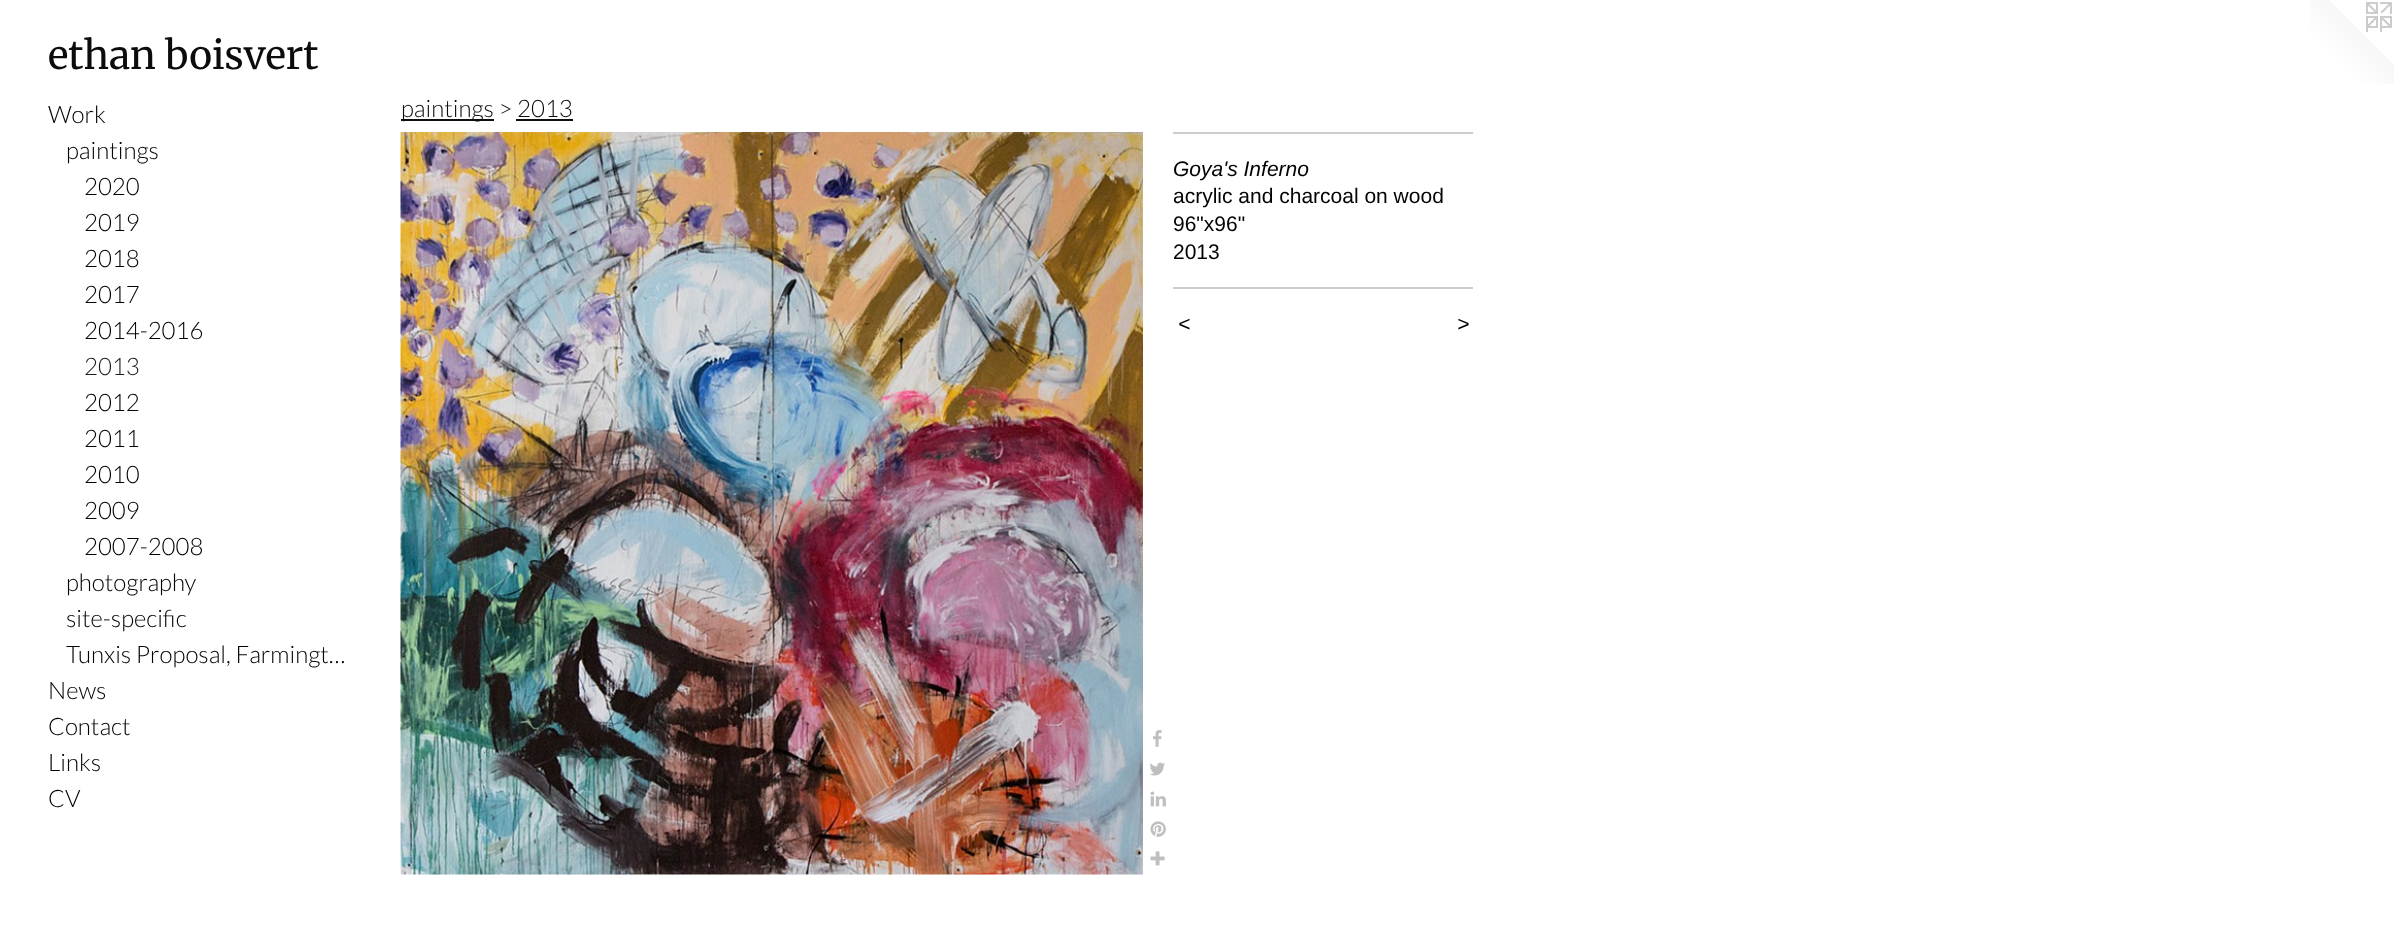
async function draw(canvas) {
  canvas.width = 2394;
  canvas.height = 950;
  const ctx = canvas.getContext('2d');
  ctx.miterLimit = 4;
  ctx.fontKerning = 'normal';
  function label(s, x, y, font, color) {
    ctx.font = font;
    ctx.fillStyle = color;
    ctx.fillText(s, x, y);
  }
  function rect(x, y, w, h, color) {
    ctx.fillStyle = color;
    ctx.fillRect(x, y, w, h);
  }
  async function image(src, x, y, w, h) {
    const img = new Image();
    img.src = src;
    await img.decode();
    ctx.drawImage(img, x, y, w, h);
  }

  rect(0, 0, 2394, 950, '#fff');
  label('ethan boisvert', 48, 69, '300 39px Merriweather', '#0c0c0c');
  await image('assets/img1.png', 2310, 0, 84, 84);
  label('Work', 48, 123, '300 24px Lato', '#020202');
  label('paintings', 66, 159, '300 24px Lato', '#020202');
  label('2020', 84, 195, '300 24px Lato', '#020202');
  label('2019', 84, 231, '300 24px Lato', '#020202');
  label('2018', 84, 267, '300 24px Lato', '#020202');
  label('2017', 84, 303, '300 24px Lato', '#020202');
  label('2014-2016', 84, 339, '300 24px Lato', '#020202');
  label('2013', 84, 375, '300 24px Lato', '#1c1c1c');
  label('2012', 84, 411, '300 24px Lato', '#020202');
  label('2011', 84, 447, '300 24px Lato', '#020202');
  label('2010', 84, 483, '300 24px Lato', '#020202');
  label('2009', 84, 519, '300 24px Lato', '#020202');
  label('2007-2008', 84, 555, '300 24px Lato', '#020202');
  label('photography', 66, 591, '300 24px Lato', '#020202');
  label('site-specific', 66, 627, '300 24px Lato', '#020202');
  label('Tunxis Proposal, Farmingt…', 66, 663, '300 24px Lato', '#020202');
  label('News', 48, 699, '300 24px Lato', '#020202');
  label('Contact', 48, 735, '300 24px Lato', '#020202');
  label('Links', 48, 771, '300 24px Lato', '#020202');
  label('CV', 48, 807, '300 24px Lato', '#020202');
  rect(401, 119, 93, 2, '#0e0e0e');
  label('paintings > 2013', 401, 117, '300 24px Lato', '#0c0c0c');
  rect(516, 119, 57, 2, '#0e0e0e');
  await image('assets/img2.png', 400, 132, 743, 743);
  await image('assets/img3.png', 1153, 730, 9, 17);
  await image('assets/img4.png', 1150, 762, 15, 14);
  await image('assets/img5.png', 1150, 791, 16, 16);
  await image('assets/img6.png', 1150, 821, 16, 16);
  await image('assets/img7.png', 1150, 851, 15, 15);
  rect(1173, 132, 300, 2, '#ccc');
  label('Goya\'s Inferno', 1173, 176, 'italic 21px Liberation Sans', '#020202');
  label('acrylic and charcoal on wood', 1173, 203, '21px Liberation Sans', '#020202');
  label('96"x96"', 1173, 231, '21px Liberation Sans', '#020202');
  label('2013', 1173, 259, '21px Liberation Sans', '#020202');
  rect(1173, 287, 300, 2, '#ccc');
  ctx.letterSpacing = '2px';
  label('<', 1178, 331, 'italic 21px Liberation Sans', '#020202');
  label('>', 1457, 331, 'italic 21px Liberation Sans', '#020202');
}

draw(document.querySelector('canvas'));
